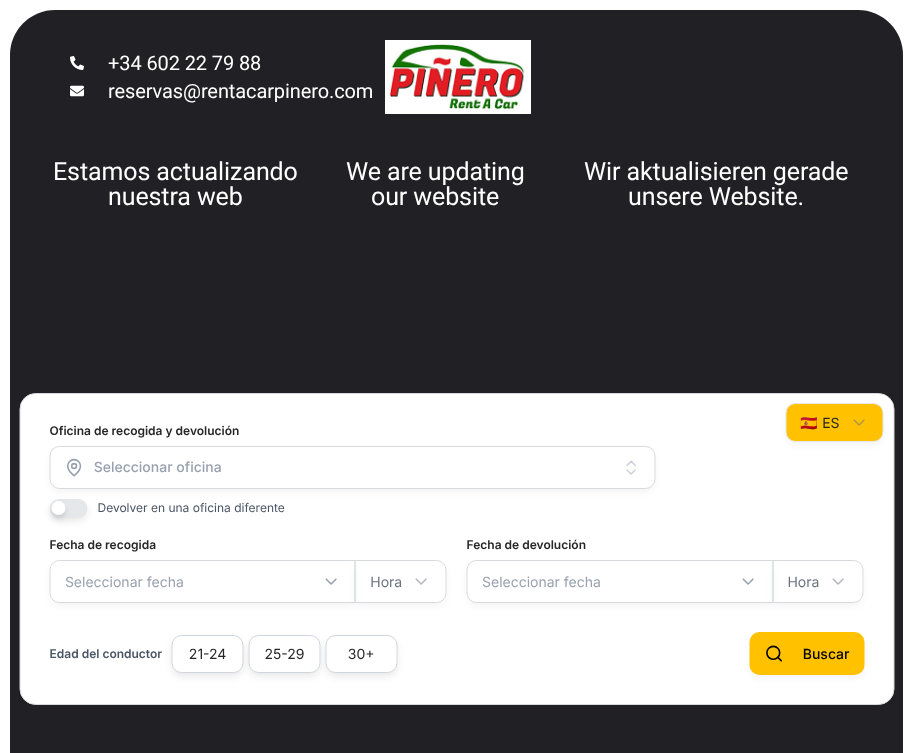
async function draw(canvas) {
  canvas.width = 913;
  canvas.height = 753;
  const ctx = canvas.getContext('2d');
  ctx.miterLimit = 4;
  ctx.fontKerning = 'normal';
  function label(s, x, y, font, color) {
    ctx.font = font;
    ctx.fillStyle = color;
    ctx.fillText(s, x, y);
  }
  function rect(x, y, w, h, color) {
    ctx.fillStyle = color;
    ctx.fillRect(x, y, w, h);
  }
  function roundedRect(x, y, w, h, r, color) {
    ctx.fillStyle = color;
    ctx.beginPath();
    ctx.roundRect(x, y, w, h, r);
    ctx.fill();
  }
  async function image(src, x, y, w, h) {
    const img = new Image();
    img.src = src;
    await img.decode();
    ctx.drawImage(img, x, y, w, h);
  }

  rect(0, 0, 913, 753, '#fff');
  roundedRect(10, 10, 893, 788, 45, '#212125');
  await image('assets/img1.png', 70, 56, 14, 14);
  ctx.letterSpacing = '-0.1px';
  label('+34 602 22 79 88', 108, 70, '20px Roboto', '#fff');
  await image('assets/img2.png', 70, 85, 14, 12);
  label('reservas@rentacarpinero.com', 108, 98, '20px Roboto', '#fff');
  await image('assets/img3.png', 385, 40, 146, 74);
  label('Estamos actualizando', 53, 180, '25px Roboto', '#fff');
  label('nuestra web', 108, 205, '25px Roboto', '#fff');
  label('We are updating', 346, 180, '25px Roboto', '#fff');
  label('our website', 371, 205, '25px Roboto', '#fff');
  label('Wir aktualisieren gerade', 584, 180, '25px Roboto', '#fff');
  label('unsere Website.', 628, 205, '25px Roboto', '#fff');
  await image('assets/img4.png', 19, 393, 876, 312);
}

draw(document.querySelector('canvas'));
